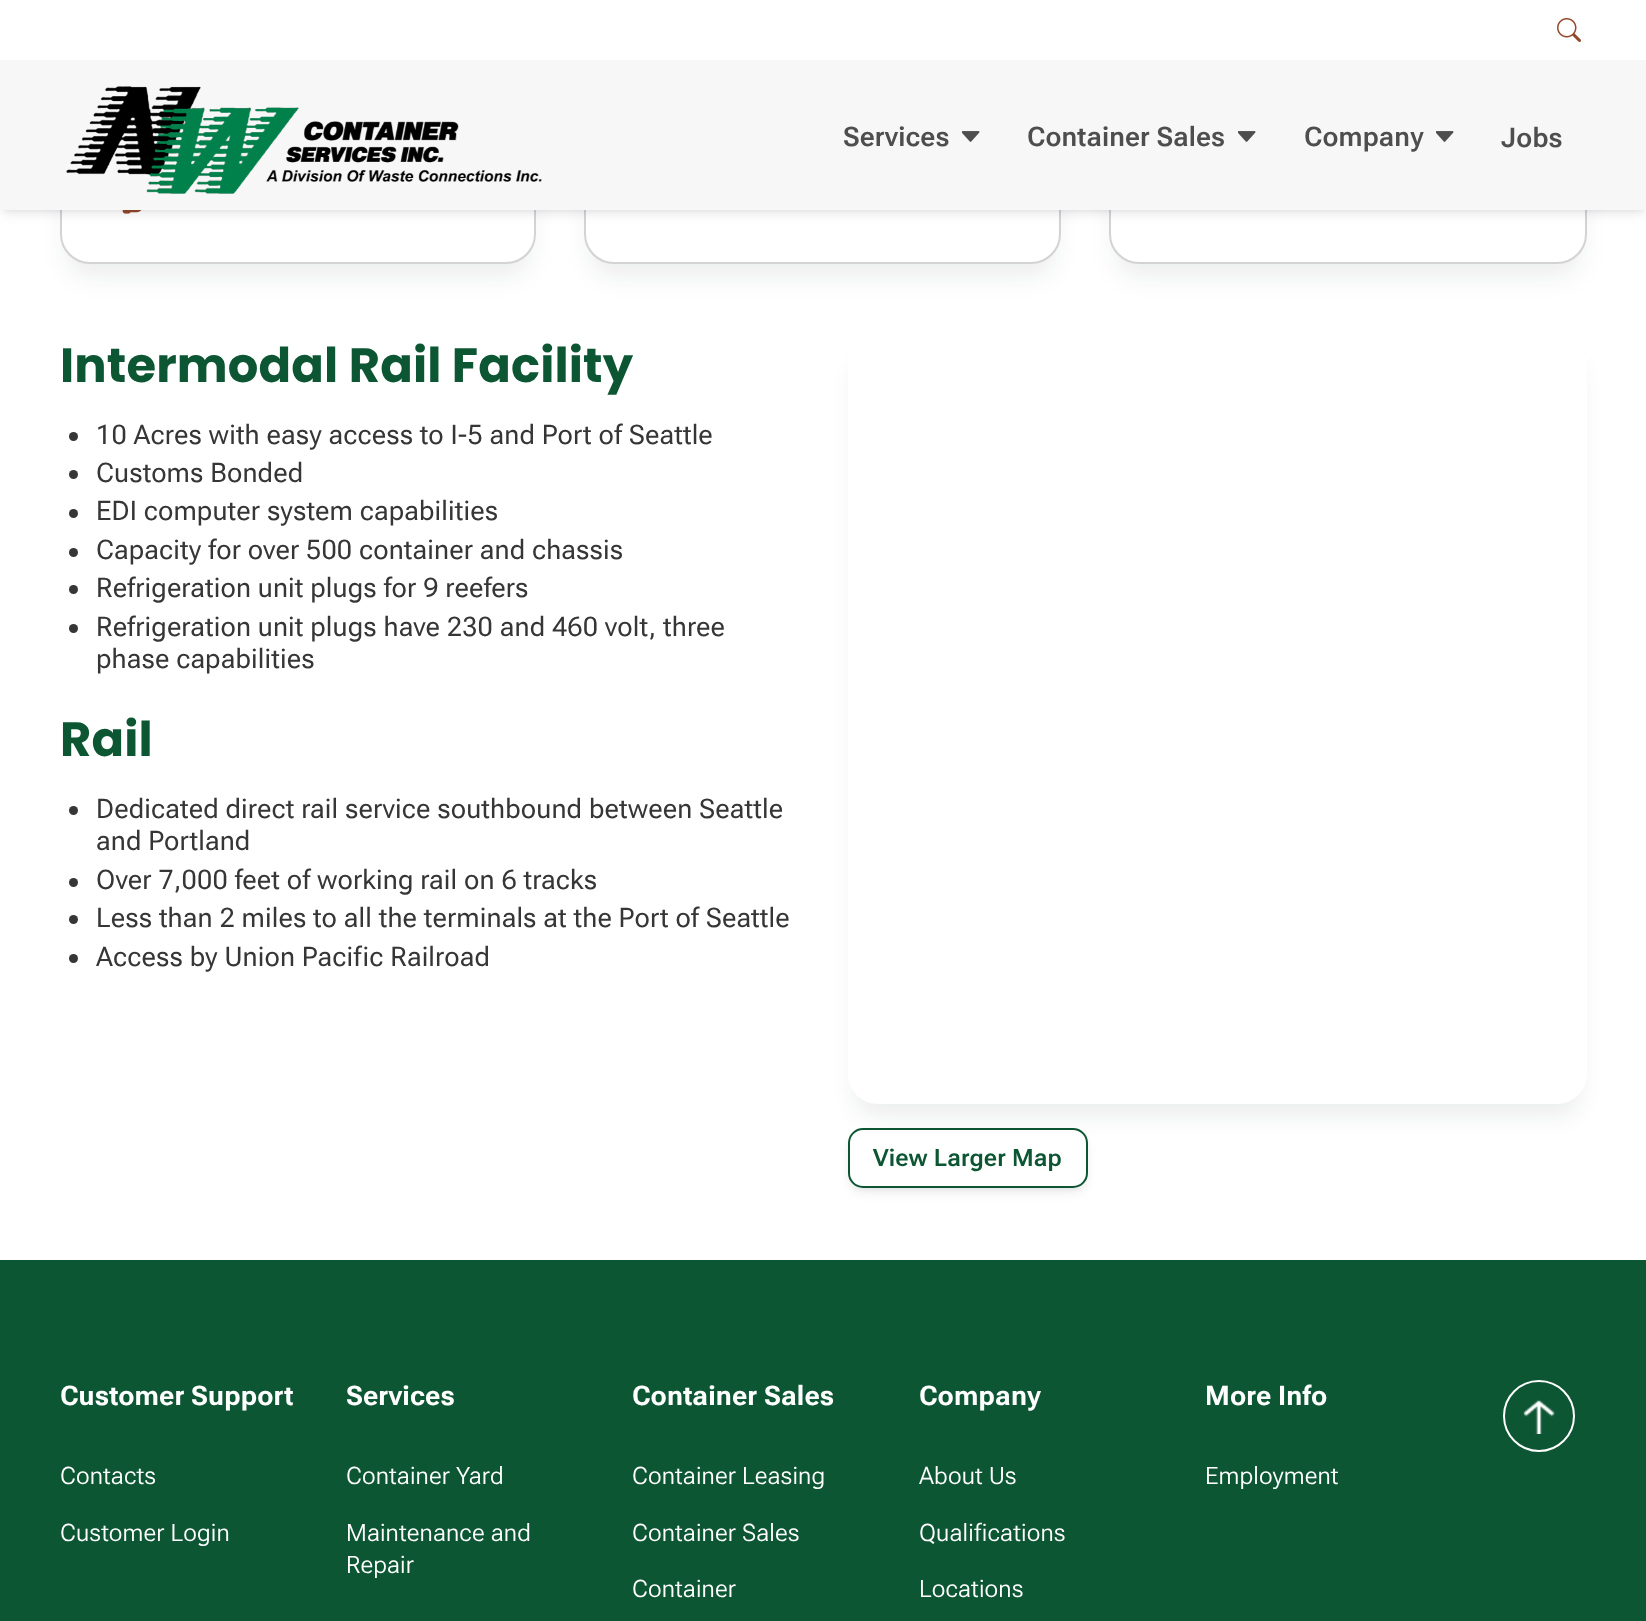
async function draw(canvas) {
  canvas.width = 1646;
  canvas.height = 1621;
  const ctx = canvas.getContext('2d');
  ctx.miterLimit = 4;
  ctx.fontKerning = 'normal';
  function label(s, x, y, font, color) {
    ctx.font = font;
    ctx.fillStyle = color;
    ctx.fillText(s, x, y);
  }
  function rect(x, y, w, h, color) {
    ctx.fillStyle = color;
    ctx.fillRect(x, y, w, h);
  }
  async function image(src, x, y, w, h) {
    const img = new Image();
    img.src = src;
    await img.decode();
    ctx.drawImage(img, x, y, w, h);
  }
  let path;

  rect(0, 0, 1646, 1621, '#fff');
  ctx.fillStyle = '#10182814';
  ctx.filter = 'blur(12px)';
  ctx.beginPath();
  ctx.roundRect(66, -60, 464, 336, 24);
  ctx.fill();
  ctx.filter = 'none';
  ctx.fillStyle = '#fff';
  ctx.beginPath();
  ctx.roundRect(61, -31, 474, 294, 29);
  ctx.fill();
  ctx.strokeStyle = '#d3d3d3';
  ctx.lineWidth = 2;
  ctx.stroke();
  await image('assets/img4.png', 122, 210, 20, 4);
  ctx.fillStyle = '#10182814';
  ctx.filter = 'blur(12px)';
  ctx.beginPath();
  ctx.roundRect(590, -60, 465, 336, 24);
  ctx.fill();
  ctx.filter = 'none';
  ctx.fillStyle = '#fff';
  ctx.beginPath();
  ctx.roundRect(585, -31, 475, 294, 29);
  ctx.fill();
  ctx.stroke();
  ctx.fillStyle = '#10182814';
  ctx.filter = 'blur(12px)';
  ctx.beginPath();
  ctx.roundRect(1115, -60, 466, 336, 24);
  ctx.fill();
  ctx.filter = 'none';
  ctx.fillStyle = '#fff';
  ctx.beginPath();
  ctx.roundRect(1110, -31, 476, 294, 29);
  ctx.fill();
  ctx.stroke();
  ctx.fillStyle = '#1018281a';
  ctx.filter = 'blur(6px)';
  ctx.beginPath();
  ctx.rect(3, 9, 1641, 204);
  ctx.fill();
  ctx.filter = 'none';
  ctx.fillStyle = '#1018280f';
  ctx.filter = 'blur(3px)';
  ctx.beginPath();
  ctx.rect(3, 6, 1641, 204);
  ctx.fill();
  ctx.filter = 'none';
  rect(0, 0, 1646, 60, '#fff');
  await image('assets/img1.png', 1557, 18, 24, 24);
  rect(0, 60, 1646, 150, '#f7f7f7');
  await image('assets/img2.png', 66, 86, 476, 108);
  ctx.letterSpacing = '0.15px';
  label('Services', 843, 146, '600 27px Roboto Flex', '#4e4e4e');
  await image('assets/img3.png', 962, 131, 18, 11);
  label('Container Sales', 1027, 146, '600 27px Roboto Flex', '#4e4e4e');
  await image('assets/img3.png', 1238, 131, 18, 11);
  label('Company', 1304, 146, '600 27px Roboto Flex', '#4e4e4e');
  await image('assets/img3.png', 1436, 131, 18, 11);
  label('Jobs', 1501, 147, '600 27px Roboto Flex', '#4e4e4e');
  label('Intermodal Rail Facility', 60, 382, 'bold 48px Poppins', '#0d5633');
  ctx.fillStyle = '#363636';
  ctx.beginPath();
  ctx.arc(73.5, 436.5, 4.5, 0, 2 * Math.PI);
  ctx.fill();
  label('10 Acres with easy access to I-5 and Port of Seattle', 96, 444, '27px Roboto Flex', '#363636');
  ctx.beginPath();
  ctx.arc(73.5, 474.5, 4.5, 0, 2 * Math.PI);
  ctx.fill();
  label('Customs Bonded', 96, 482, '27px Roboto Flex', '#363636');
  ctx.beginPath();
  ctx.arc(73.5, 513.5, 4.5, 0, 2 * Math.PI);
  ctx.fill();
  label('EDI computer system capabilities', 96, 520, '27px Roboto Flex', '#363636');
  ctx.beginPath();
  ctx.arc(73.5, 552.5, 4.5, 0, 2 * Math.PI);
  ctx.fill();
  label('Capacity for over 500 container and chassis', 96, 559, '27px Roboto Flex', '#363636');
  ctx.beginPath();
  ctx.arc(73.5, 589.5, 4.5, 0, 2 * Math.PI);
  ctx.fill();
  label('Refrigeration unit plugs for 9 reefers', 96, 597, '27px Roboto Flex', '#363636');
  ctx.beginPath();
  ctx.arc(73.5, 628.5, 4.5, 0, 2 * Math.PI);
  ctx.fill();
  label('Refrigeration unit plugs have 230 and 460 volt, three', 96, 636, '27px Roboto Flex', '#363636');
  label('phase capabilities', 96, 668, '27px Roboto Flex', '#363636');
  label('Rail', 60, 756, 'bold 48px Poppins', '#0d5633');
  ctx.fillStyle = '#363636';
  ctx.beginPath();
  ctx.arc(73.5, 810.5, 4.5, 0, 2 * Math.PI);
  ctx.fill();
  label('Dedicated direct rail service southbound between Seattle', 96, 818, '27px Roboto Flex', '#363636');
  label('and Portland', 96, 850, '27px Roboto Flex', '#363636');
  ctx.beginPath();
  ctx.arc(73.5, 882.5, 4.5, 0, 2 * Math.PI);
  ctx.fill();
  label('Over 7,000 feet of working rail on 6 tracks', 96, 889, '27px Roboto Flex', '#363636');
  ctx.beginPath();
  ctx.arc(73.5, 919.5, 4.5, 0, 2 * Math.PI);
  ctx.fill();
  label('Less than 2 miles to all the terminals at the Port of Seattle', 96, 927, '27px Roboto Flex', '#363636');
  ctx.beginPath();
  ctx.arc(73.5, 958.5, 4.5, 0, 2 * Math.PI);
  ctx.fill();
  label('Access by Union Pacific Railroad', 96, 966, '27px Roboto Flex', '#363636');
  ctx.fillStyle = '#1018280f';
  ctx.filter = 'blur(3px)';
  ctx.beginPath();
  ctx.roundRect(851, 1134, 234, 54, 12);
  ctx.fill();
  ctx.filter = 'none';
  ctx.fillStyle = '#1018281a';
  ctx.filter = 'blur(6px)';
  ctx.beginPath();
  ctx.roundRect(851, 1137, 234, 54, 12);
  ctx.fill();
  ctx.filter = 'none';
  ctx.fillStyle = '#fff';
  ctx.beginPath();
  ctx.roundRect(849, 1129, 238, 58, 14);
  ctx.fill();
  ctx.strokeStyle = '#0d5633';
  ctx.stroke();
  ctx.save();
  path = new Path2D('M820 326H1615V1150H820ZM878 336H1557C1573.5 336 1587 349.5 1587 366V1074C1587 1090.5 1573.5 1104 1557 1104H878C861.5 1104 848 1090.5 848 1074V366C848 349.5 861.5 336 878 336Z');
  ctx.clip(path, 'evenodd');
  ctx.fillStyle = '#10182814';
  ctx.filter = 'blur(11px)';
  ctx.beginPath();
  ctx.roundRect(854, 360, 727, 756, 24);
  ctx.fill();
  ctx.filter = 'none';
  ctx.restore();
  label('View Larger Map', 873, 1166, '600 24px Roboto Flex', '#0d5633');
  rect(0, 1260, 1646, 361, '#0d5633');
  label('Customer Support', 60, 1405, 'bold 27px Roboto Flex', '#fff');
  label('Contacts', 60, 1484, '300 24px Roboto Flex', '#fff');
  label('Customer Login', 60, 1541, '300 24px Roboto Flex', '#fff');
  label('Services', 346, 1405, 'bold 27px Roboto Flex', '#fff');
  label('Container Yard', 346, 1484, '300 24px Roboto Flex', '#fff');
  label('Maintenance and', 346, 1541, '300 24px Roboto Flex', '#fff');
  label('Repair', 346, 1573, '300 24px Roboto Flex', '#fff');
  label('Container Sales', 632, 1405, 'bold 27px Roboto Flex', '#fff');
  label('Container Leasing', 632, 1484, '300 24px Roboto Flex', '#fff');
  label('Container Sales', 632, 1541, '300 24px Roboto Flex', '#fff');
  label('Container', 632, 1597, '300 24px Roboto Flex', '#fff');
  label('Company', 919, 1405, 'bold 27px Roboto Flex', '#fff');
  label('About Us', 919, 1484, '300 24px Roboto Flex', '#fff');
  label('Qualifications', 919, 1541, '300 24px Roboto Flex', '#fff');
  label('Locations', 919, 1597, '300 24px Roboto Flex', '#fff');
  label('More Info', 1205, 1405, 'bold 27px Roboto Flex', '#fff');
  label('Employment', 1205, 1484, '300 24px Roboto Flex', '#fff');
  ctx.beginPath();
  ctx.arc(1539, 1416, 35, 0, 2 * Math.PI);
  ctx.strokeStyle = '#fff';
  ctx.stroke();
  await image('assets/img5.png', 1523, 1399, 32, 35);
}

draw(document.querySelector('canvas'));
